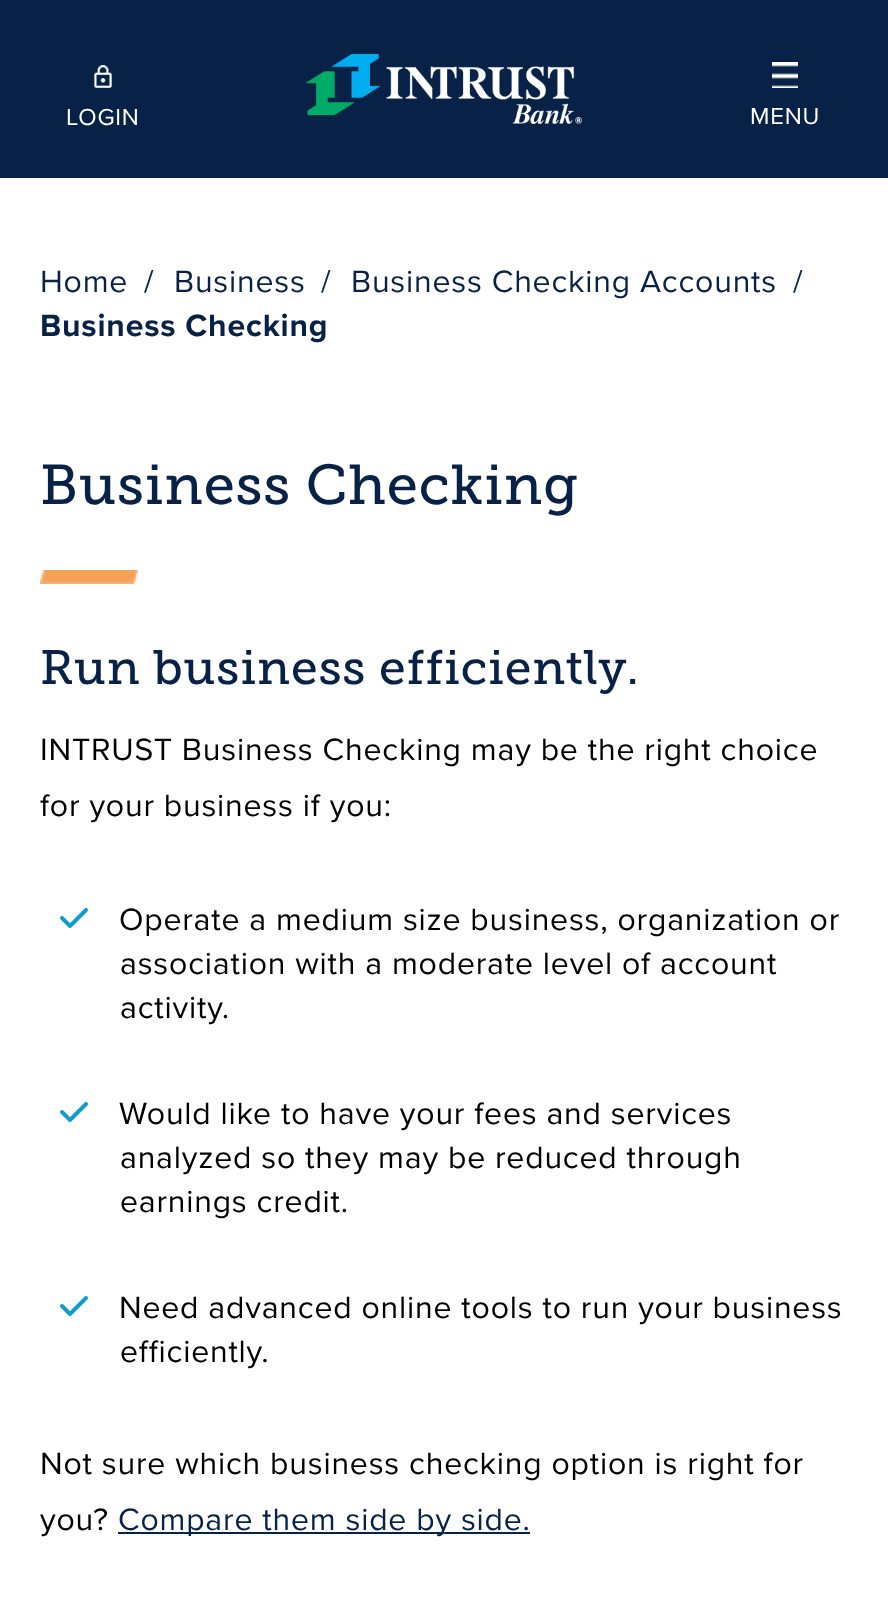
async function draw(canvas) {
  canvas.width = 888;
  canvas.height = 1609;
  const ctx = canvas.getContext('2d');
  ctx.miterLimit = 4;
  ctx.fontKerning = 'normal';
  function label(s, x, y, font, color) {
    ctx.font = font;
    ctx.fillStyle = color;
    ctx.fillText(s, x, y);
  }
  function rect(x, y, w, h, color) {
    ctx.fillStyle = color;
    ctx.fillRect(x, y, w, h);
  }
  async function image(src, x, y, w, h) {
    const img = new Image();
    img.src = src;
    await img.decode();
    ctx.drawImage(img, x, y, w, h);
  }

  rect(0, 0, 888, 1609, '#fff');
  rect(0, 0, 888, 178, '#082247');
  await image('assets/img1.png', 94, 65, 18, 23);
  ctx.letterSpacing = '0.8px';
  label('LOGIN', 66, 125, '24px Proxima Nova', '#fff');
  await image('assets/img2.png', 306, 54, 276, 70);
  await image('assets/img3.png', 772, 62, 26, 26);
  label('MENU', 750, 124, '24px Proxima Nova', '#fff');
  label('Home', 40, 292, '32px Proxima Nova', '#082247');
  label('/', 144, 292, '32px Proxima Nova', '#082247');
  label('Business', 174, 292, '32px Proxima Nova', '#082247');
  label('/', 321, 292, '32px Proxima Nova', '#082247');
  label('Business Checking Accounts', 351, 292, '32px Proxima Nova', '#082247');
  label('/', 793, 292, '32px Proxima Nova', '#082247');
  label('Business Checking', 40, 336, 'bold 32px Proxima Nova', '#082247');
  label('Business Checking', 40, 504, '56px Museo Slab', '#082247');
  await image('assets/img4.png', 40, 570, 98, 14);
  label('Run business efficiently.', 40, 684, '48px Museo Slab', '#082247');
  label('INTRUST Business Checking may be the right choice', 40, 760, '32px Proxima Nova', '#000');
  label('for your business if you:', 40, 816, '32px Proxima Nova', '#000');
  await image('assets/img5.png', 60, 908, 28, 20);
  label('Operate a medium size business, organization or', 119, 930, '32px Proxima Nova', '#000');
  label('association with a moderate level of account', 120, 974, '32px Proxima Nova', '#000');
  label('activity.', 120, 1018, '32px Proxima Nova', '#000');
  await image('assets/img5.png', 60, 1102, 28, 20);
  label('Would like to have your fees and services', 119, 1124, '32px Proxima Nova', '#000');
  label('analyzed so they may be reduced through', 120, 1168, '32px Proxima Nova', '#000');
  label('earnings credit.', 120, 1212, '32px Proxima Nova', '#000');
  await image('assets/img5.png', 60, 1296, 28, 20);
  label('Need advanced online tools to run your business', 119, 1318, '32px Proxima Nova', '#000');
  label('efficiently.', 120, 1362, '32px Proxima Nova', '#000');
  label('Not sure which business checking option is right for', 40, 1474, '32px Proxima Nova', '#000');
  label('you?', 40, 1530, '32px Proxima Nova', '#000');
  rect(118, 1532, 412, 2, '#082247');
  label('Compare them side by side.', 118, 1530, '32px Proxima Nova', '#082247');
}

draw(document.querySelector('canvas'));
